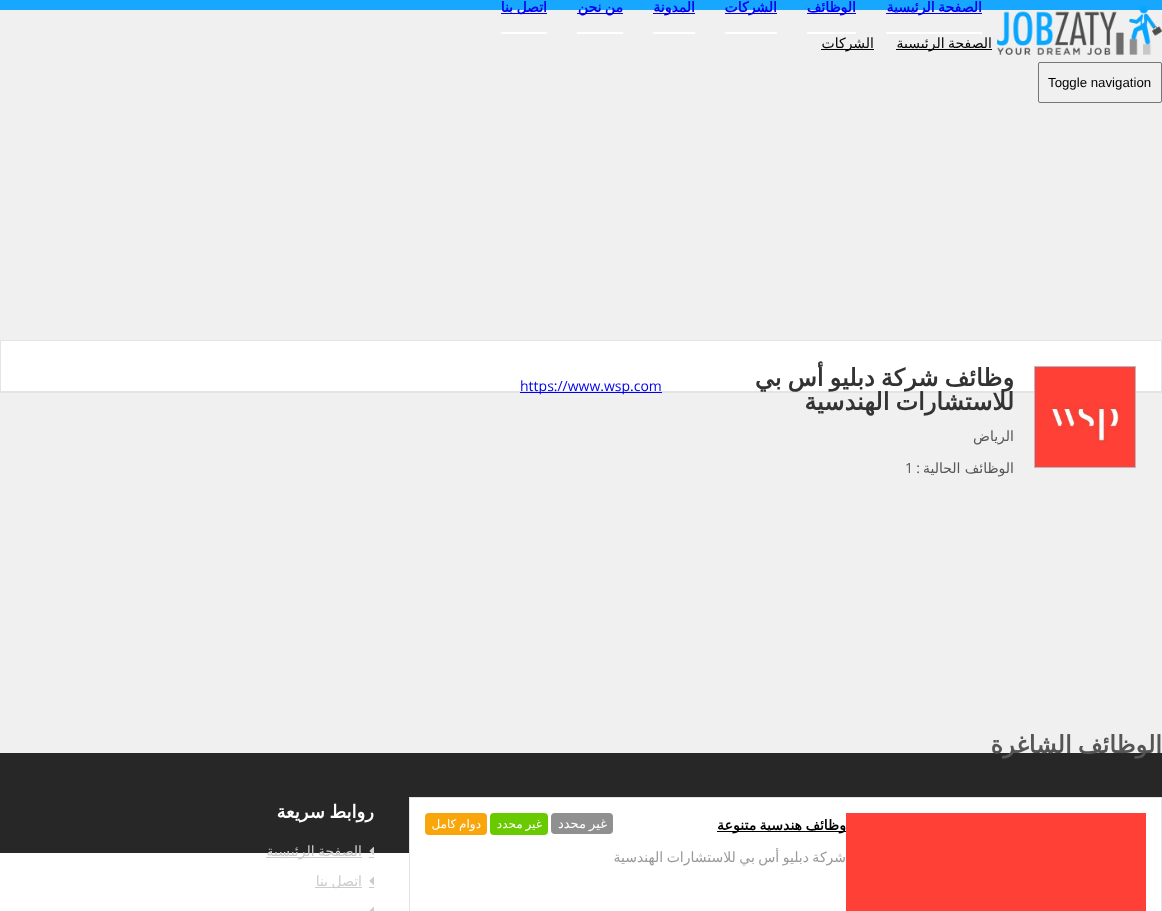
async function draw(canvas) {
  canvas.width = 1162;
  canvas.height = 911;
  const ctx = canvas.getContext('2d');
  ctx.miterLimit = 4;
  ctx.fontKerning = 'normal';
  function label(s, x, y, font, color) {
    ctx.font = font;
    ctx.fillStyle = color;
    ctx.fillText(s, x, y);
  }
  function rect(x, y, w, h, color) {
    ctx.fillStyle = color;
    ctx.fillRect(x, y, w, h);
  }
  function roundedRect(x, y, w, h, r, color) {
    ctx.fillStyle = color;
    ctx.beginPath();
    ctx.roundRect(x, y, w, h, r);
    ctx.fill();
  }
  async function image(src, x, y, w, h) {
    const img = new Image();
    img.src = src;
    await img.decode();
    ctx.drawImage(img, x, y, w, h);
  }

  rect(0, 0, 1162, 911, '#fff');
  rect(0, 10, 1162, 743, '#f0f0f0');
  rect(886, 13, 96, 1, '#00e');
  rect(0, 0, 1162, 10, '#18a7ff');
  ctx.wordSpacing = '-1px';
  ctx.direction = 'rtl';
  label('الصفحة الرئيسية', 982, 12, 'bold 14px DejaVu Sans', '#00e');
  rect(886, 32, 96, 2, '#fff');
  rect(807, 13, 49, 1, '#00e');
  ctx.wordSpacing = '0px';
  label('الوظائف', 856, 12, 'bold 14px DejaVu Sans', '#00e');
  rect(807, 32, 49, 2, '#fff');
  rect(725, 13, 52, 1, '#00e');
  label('الشركات', 777, 12, 'bold 14px DejaVu Sans', '#00e');
  rect(725, 32, 52, 2, '#fff');
  rect(653, 13, 42, 1, '#00e');
  label('المدونة', 695, 12, 'bold 14px DejaVu Sans', '#00e');
  rect(653, 32, 42, 2, '#fff');
  rect(577, 13, 46, 1, '#00e');
  ctx.wordSpacing = '-1px';
  label('من نحن', 623, 12, 'bold 14px DejaVu Sans', '#00e');
  rect(577, 32, 46, 2, '#fff');
  rect(501, 13, 46, 1, '#00e');
  label('اتصل بنا', 547, 12, 'bold 14px DejaVu Sans', '#00e');
  rect(501, 32, 46, 2, '#fff');
  await image('assets/img1.png', 997, 5, 165, 50);
  ctx.beginPath();
  ctx.roundRect(1038.5, 62.5, 123, 40, 1.5);
  ctx.strokeStyle = '#767676';
  ctx.stroke();
  ctx.wordSpacing = '0px';
  ctx.direction = 'ltr';
  label('Toggle navigation', 1048, 87, '13.25px Liberation Sans', '#000');
  rect(896, 49, 96, 1, '#000');
  ctx.wordSpacing = '-1px';
  ctx.direction = 'rtl';
  label('الصفحة الرئيسية', 992, 48, '14px DejaVu Sans', '#000');
  rect(821, 49, 53, 1, '#000');
  ctx.wordSpacing = '0px';
  label('الشركات', 874, 48, '14px DejaVu Sans', '#000');
  rect(1, 341, 1160, 50, '#fff');
  ctx.strokeStyle = '#e4e4e4';
  ctx.strokeRect(0.5, 340.5, 1161, 52);
  rect(1, 391, 1160, 1, '#e4e4e4');
  ctx.strokeStyle = '#b1bcc5';
  ctx.strokeRect(1034.5, 366.5, 101, 101);
  await image('assets/img2.png', 1035, 367, 100, 100);
  ctx.wordSpacing = '-1.5px';
  label('وظائف شركة دبليو أس بي', 1014, 386, 'bold 24px DejaVu Sans', '#333');
  label('للاستشارات الهندسية', 1014, 410, 'bold 24px DejaVu Sans', '#333');
  ctx.wordSpacing = '0px';
  label('الرياض', 1014, 441, '14px DejaVu Sans', '#555');
  label('الوظائف الحالية', 1014, 473, '14px DejaVu Sans', '#555');
  label(':', 920, 473, '14px Open Sans', '#555');
  ctx.direction = 'ltr';
  label('1', 905, 473, '14px Open Sans', '#555');
  rect(520, 392, 142, 1, '#00e');
  label('https://www.wsp.com', 520, 391, '14px Open Sans', '#00e');
  rect(0, 753, 1162, 100, '#272727');
  ctx.wordSpacing = '-1.5px';
  ctx.direction = 'rtl';
  label('الوظائف الشاغرة', 1162, 753, 'bold 24px DejaVu Sans', '#555');
  rect(410, 798, 751, 55, '#fff');
  ctx.strokeStyle = '#e3e3e3';
  ctx.strokeRect(409.5, 797.5, 752, 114);
  rect(846, 813, 300, 98, '#ff4036');
  rect(717, 831, 129, 1, '#000');
  ctx.wordSpacing = '-1px';
  label('وظائف هندسية متنوعة', 846, 830, 'bold 14px DejaVu Sans', '#000');
  label('شركة دبليو أس بي للاستشارات الهندسية', 846, 862, '14px DejaVu Sans', '#999');
  roundedRect(551, 813, 62, 21, 4, '#909090');
  label('غير محدد', 607, 828, '13px DejaVu Sans', '#fff');
  roundedRect(490, 813, 58, 22, 4, '#6aca00');
  label('غير محدد', 542, 828, '12px DejaVu Sans', '#fff');
  roundedRect(425, 813, 62, 22, 4, '#f8a60c');
  label('دوام كامل', 481, 828, '12px DejaVu Sans', '#fff');
  label('روابط سريعة', 374, 818, 'bold 18px DejaVu Sans', '#fff');
  await image('assets/img3.png', 369, 847, 5, 8);
  rect(266, 857, 96, 1, '#ccc');
  label('الصفحة الرئيسية', 362, 856, '14px DejaVu Sans', '#ccc');
  rect(369, 857, 5, 1, '#ccc');
  await image('assets/img4.png', 369, 877, 5, 8);
  rect(315, 887, 47, 1, '#ccc');
  label('اتصل بنا', 362, 886, '14px DejaVu Sans', '#ccc');
  rect(369, 887, 5, 1, '#ccc');
  await image('assets/img5.png', 369, 907, 5, 4);
}

draw(document.querySelector('canvas'));
